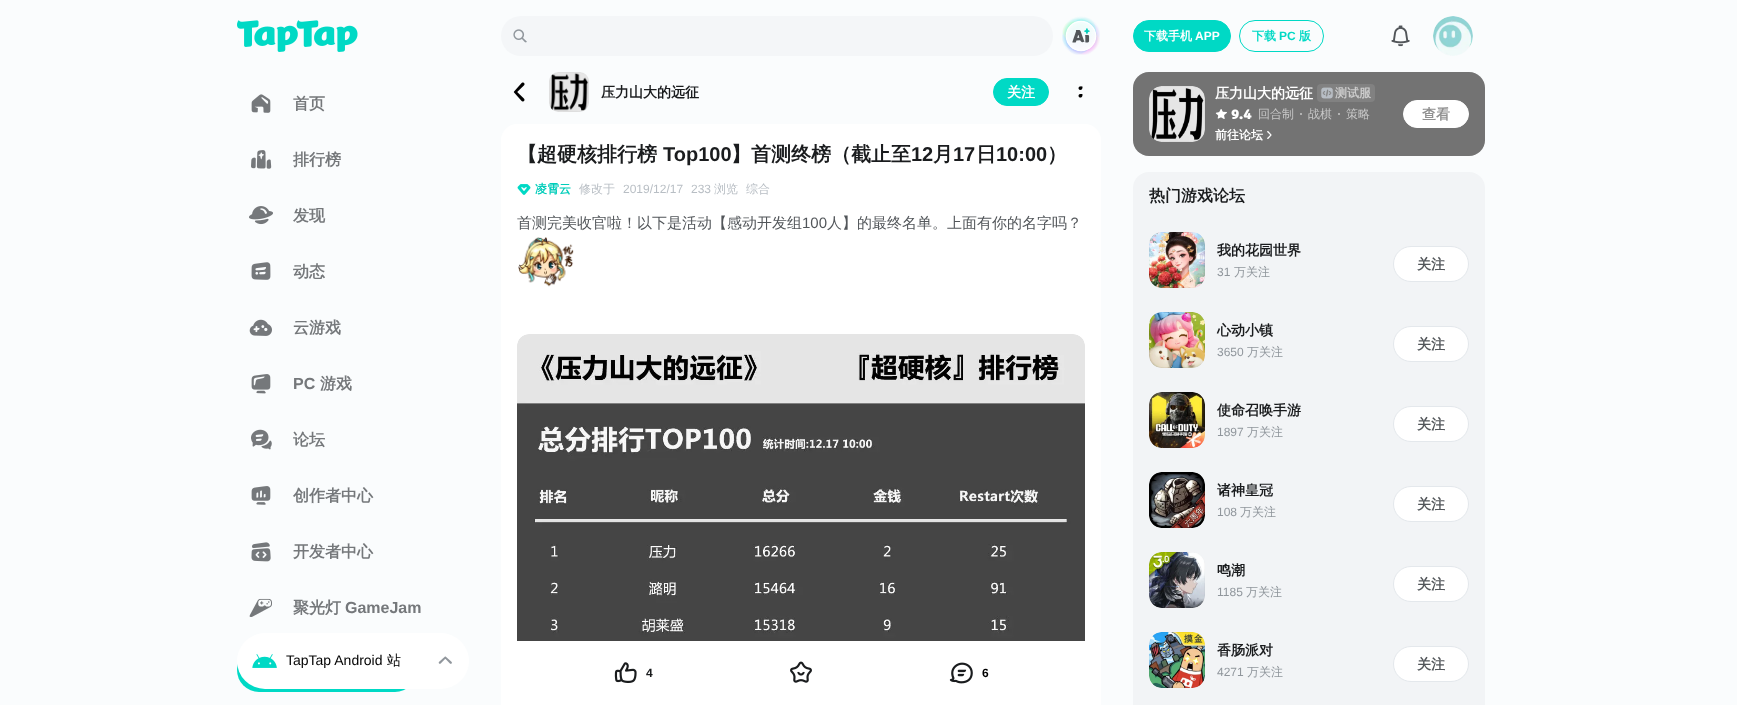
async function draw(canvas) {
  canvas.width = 1737;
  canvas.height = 705;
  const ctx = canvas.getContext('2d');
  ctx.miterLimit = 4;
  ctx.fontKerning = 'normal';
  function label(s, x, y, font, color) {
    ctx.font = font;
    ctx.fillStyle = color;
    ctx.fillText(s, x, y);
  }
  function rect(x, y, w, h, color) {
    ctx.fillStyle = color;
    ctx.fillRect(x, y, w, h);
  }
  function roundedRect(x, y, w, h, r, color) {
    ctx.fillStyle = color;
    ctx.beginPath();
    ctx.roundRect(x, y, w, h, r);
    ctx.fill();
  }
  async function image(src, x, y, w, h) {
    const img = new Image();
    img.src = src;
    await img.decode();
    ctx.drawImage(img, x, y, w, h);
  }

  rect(0, 0, 1737, 705, '#fafcfd');
  await image('assets/img1.png', 237, 20, 121, 32);
  await image('assets/img2.png', 251, 94, 20, 19);
  label('首页', 293, 109, 'bold 16px WenQuanYi Zen Hei', '#75787b');
  await image('assets/img3.png', 251, 150, 21, 19);
  label('排行榜', 293, 165, 'bold 16px WenQuanYi Zen Hei', '#75787b');
  await image('assets/img4.png', 249, 206, 24, 19);
  label('发现', 293, 221, 'bold 16px WenQuanYi Zen Hei', '#75787b');
  await image('assets/img5.png', 251, 262, 20, 18);
  label('动态', 293, 277, 'bold 16px WenQuanYi Zen Hei', '#75787b');
  await image('assets/img6.png', 249, 319, 23, 17);
  label('云游戏', 293, 333, 'bold 16px WenQuanYi Zen Hei', '#75787b');
  await image('assets/img7.png', 251, 374, 20, 20);
  label('PC', 293, 389, 'bold 16px Liberation Sans', '#75787b');
  label('游戏', 320, 389, 'bold 16px WenQuanYi Zen Hei', '#75787b');
  await image('assets/img8.png', 251, 429, 21, 21);
  label('论坛', 293, 445, 'bold 16px WenQuanYi Zen Hei', '#75787b');
  await image('assets/img9.png', 251, 486, 20, 19);
  label('创作者中心', 293, 501, 'bold 16px WenQuanYi Zen Hei', '#75787b');
  await image('assets/img10.png', 251, 542, 20, 20);
  label('开发者中心', 293, 557, 'bold 16px WenQuanYi Zen Hei', '#75787b');
  await image('assets/img11.png', 249, 598, 23, 19);
  label('聚光灯', 293, 613, 'bold 16px WenQuanYi Zen Hei', '#75787b');
  label('GameJam', 345, 613, 'bold 16px Liberation Sans', '#75787b');
  roundedRect(237, 648, 180, 44, 22, '#00d9c5');
  roundedRect(237, 633, 232, 56, 28, '#fff');
  await image('assets/img12.png', 252, 654, 25, 14);
  label('TapTap Android', 286, 665, '14px Liberation Sans', '#000');
  label('站', 387, 665, '500 14px WenQuanYi Zen Hei', '#000');
  await image('assets/img13.png', 438, 656, 14, 8);
  roundedRect(501, 16, 552, 40, 20, '#f4f6f8');
  await image('assets/img14.png', 513, 29, 14, 14);
  await image('assets/img15.png', 1062, 16, 38, 39);
  await image('assets/img16.png', 513, 82, 12, 20);
  await image('assets/img17.png', 549, 72, 40, 40);
  label('压力山大的远征', 601, 97, 'bold 14px WenQuanYi Zen Hei', '#1a1c1e');
  ctx.fillStyle = '#00d9c5';
  ctx.beginPath();
  ctx.roundRect(993.5, 78.5, 55, 27, 13.5);
  ctx.fill();
  ctx.strokeStyle = '#00d9c5';
  ctx.stroke();
  label('关注', 1007, 97, 'bold 14px WenQuanYi Zen Hei', '#fff');
  await image('assets/img18.png', 1078, 86, 5, 12);
  roundedRect(501, 124, 600, 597, 16, '#fff');
  label('【超硬核排行榜', 517, 161, 'bold 20px WenQuanYi Zen Hei', '#1a1c1e');
  label('Top100', 663, 161, 'bold 20px Liberation Sans', '#1a1c1e');
  label('】首测终榜（截止至', 731, 161, 'bold 20px WenQuanYi Zen Hei', '#1a1c1e');
  label('12', 911, 161, 'bold 20px Liberation Sans', '#1a1c1e');
  label('月', 933, 161, 'bold 20px WenQuanYi Zen Hei', '#1a1c1e');
  label('17', 953, 161, 'bold 20px Liberation Sans', '#1a1c1e');
  label('日', 976, 161, 'bold 20px WenQuanYi Zen Hei', '#1a1c1e');
  label('10:00', 996, 161, 'bold 20px Liberation Sans', '#1a1c1e');
  label('）', 1047, 161, 'bold 20px WenQuanYi Zen Hei', '#1a1c1e');
  await image('assets/img19.png', 517, 184, 14, 11);
  label('凌霄云', 535, 193, 'bold 12px WenQuanYi Zen Hei', '#00cdba');
  label('修改于', 579, 193, '500 12px WenQuanYi Zen Hei', '#b8bec4');
  label('2019/12/17', 623, 193, '12px Liberation Sans', '#b8bec4');
  label('233', 691, 193, '12px Liberation Sans', '#b8bec4');
  label('浏览', 714, 193, '500 12px WenQuanYi Zen Hei', '#b8bec4');
  label('综合', 746, 193, '500 12px WenQuanYi Zen Hei', '#b8bec4');
  label('首测完美收官啦！以下是活动【感动开发组', 517, 228, '500 15px WenQuanYi Zen Hei', '#52565a');
  label('100', 802, 228, '15px Liberation Sans', '#52565a');
  label('人】的最终名单。上面有你的名字吗？', 827, 228, '500 15px WenQuanYi Zen Hei', '#52565a');
  await image('assets/img20.png', 518, 237, 56, 50);
  await image('assets/img21.png', 517, 334, 568, 307);
  await image('assets/img22.png', 614, 662, 23, 21);
  label('4', 646, 677, 'bold 12px Liberation Sans', '#1a1c1e');
  await image('assets/img23.png', 790, 661, 22, 22);
  await image('assets/img24.png', 949, 662, 24, 22);
  label('6', 982, 677, 'bold 12px Liberation Sans', '#000');
  ctx.fillStyle = '#00d9c5';
  ctx.beginPath();
  ctx.roundRect(1133.5, 20.5, 97, 31, 15.5);
  ctx.fill();
  ctx.stroke();
  label('下载手机', 1144, 40, 'bold 12px WenQuanYi Zen Hei', '#fff');
  label('APP', 1195, 40, 'bold 12px Liberation Sans', '#fff');
  ctx.beginPath();
  ctx.roundRect(1239.5, 20.5, 84, 31, 15.5);
  ctx.stroke();
  label('下载', 1252, 40, 'bold 12px WenQuanYi Zen Hei', '#00d9c5');
  label('PC', 1279, 40, 'bold 12px Liberation Sans', '#00d9c5');
  label('版', 1299, 40, 'bold 12px WenQuanYi Zen Hei', '#00d9c5');
  await image('assets/img25.png', 1391, 25, 19, 22);
  await image('assets/img26.png', 1433, 16, 40, 40);
  roundedRect(1133, 72, 352, 84, 16, '#909090');
  roundedRect(1133, 72, 352, 84, 16, '#00000033');
  await image('assets/img27.png', 1149, 86, 56, 56);
  label('压力山大的远征', 1215, 98, 'bold 14px WenQuanYi Zen Hei', '#fff');
  roundedRect(1317, 84, 58, 18, 4, '#818181');
  await image('assets/img28.png', 1321, 87, 13, 12);
  label('测试服', 1335, 97, 'bold 12px WenQuanYi Zen Hei', '#cdcdcd');
  await image('assets/img29.png', 1215, 109, 12, 10);
  label('9.4', 1231, 119, '900 14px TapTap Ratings', '#fff');
  label('回合制', 1258, 118, '500 12px WenQuanYi Zen Hei', '#c7c7c7');
  ctx.beginPath();
  ctx.arc(1301, 114, 1, 0, 2 * Math.PI);
  ctx.fill();
  label('战棋', 1308, 118, '500 12px WenQuanYi Zen Hei', '#c7c7c7');
  ctx.beginPath();
  ctx.arc(1339, 114, 1, 0, 2 * Math.PI);
  ctx.fill();
  label('策略', 1346, 118, '500 12px WenQuanYi Zen Hei', '#c7c7c7');
  label('前往论坛', 1215, 139, 'bold 12px WenQuanYi Zen Hei', '#fff');
  await image('assets/img30.png', 1267, 131, 5, 8);
  ctx.beginPath();
  ctx.roundRect(1403.5, 100.5, 65, 27, 13.5);
  ctx.fill();
  ctx.strokeStyle = '#fff';
  ctx.stroke();
  label('查看', 1422, 119, 'bold 14px WenQuanYi Zen Hei', '#909090');
  roundedRect(1133, 172, 352, 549, 16, '#f2f4f6');
  label('热门游戏论坛', 1149, 201, 'bold 16px WenQuanYi Zen Hei', '#1a1c1e');
  await image('assets/img31.png', 1149, 232, 56, 56);
  label('我的花园世界', 1217, 255, 'bold 14px WenQuanYi Zen Hei', '#1a1c1e');
  label('31', 1217, 276, '12px Liberation Sans', '#90969c');
  label('万关注', 1234, 276, '500 12px WenQuanYi Zen Hei', '#90969c');
  ctx.fillStyle = '#fff';
  ctx.beginPath();
  ctx.roundRect(1393.5, 246.5, 75, 35, 17.5);
  ctx.fill();
  ctx.strokeStyle = '#e4e8ec';
  ctx.stroke();
  label('关注', 1417, 269, 'bold 14px WenQuanYi Zen Hei', '#52565a');
  await image('assets/img32.png', 1149, 312, 56, 56);
  label('心动小镇', 1217, 335, 'bold 14px WenQuanYi Zen Hei', '#1a1c1e');
  label('3650', 1217, 356, '12px Liberation Sans', '#90969c');
  label('万关注', 1247, 356, '500 12px WenQuanYi Zen Hei', '#90969c');
  ctx.fillStyle = '#fff';
  ctx.beginPath();
  ctx.roundRect(1393.5, 326.5, 75, 35, 17.5);
  ctx.fill();
  ctx.stroke();
  label('关注', 1417, 349, 'bold 14px WenQuanYi Zen Hei', '#52565a');
  await image('assets/img33.png', 1149, 392, 56, 56);
  label('使命召唤手游', 1217, 415, 'bold 14px WenQuanYi Zen Hei', '#1a1c1e');
  label('1897', 1217, 436, '12px Liberation Sans', '#90969c');
  label('万关注', 1247, 436, '500 12px WenQuanYi Zen Hei', '#90969c');
  ctx.fillStyle = '#fff';
  ctx.beginPath();
  ctx.roundRect(1393.5, 406.5, 75, 35, 17.5);
  ctx.fill();
  ctx.stroke();
  label('关注', 1417, 429, 'bold 14px WenQuanYi Zen Hei', '#52565a');
  await image('assets/img34.png', 1149, 472, 56, 56);
  label('诸神皇冠', 1217, 495, 'bold 14px WenQuanYi Zen Hei', '#1a1c1e');
  label('108', 1217, 516, '12px Liberation Sans', '#90969c');
  label('万关注', 1240, 516, '500 12px WenQuanYi Zen Hei', '#90969c');
  ctx.fillStyle = '#fff';
  ctx.beginPath();
  ctx.roundRect(1393.5, 486.5, 75, 35, 17.5);
  ctx.fill();
  ctx.stroke();
  label('关注', 1417, 509, 'bold 14px WenQuanYi Zen Hei', '#52565a');
  await image('assets/img35.png', 1149, 552, 56, 56);
  label('鸣潮', 1217, 575, 'bold 14px WenQuanYi Zen Hei', '#1a1c1e');
  label('1185', 1217, 596, '12px Liberation Sans', '#90969c');
  label('万关注', 1246, 596, '500 12px WenQuanYi Zen Hei', '#90969c');
  ctx.fillStyle = '#fff';
  ctx.beginPath();
  ctx.roundRect(1393.5, 566.5, 75, 35, 17.5);
  ctx.fill();
  ctx.stroke();
  label('关注', 1417, 589, 'bold 14px WenQuanYi Zen Hei', '#52565a');
  await image('assets/img36.png', 1149, 632, 56, 56);
  label('香肠派对', 1217, 655, 'bold 14px WenQuanYi Zen Hei', '#1a1c1e');
  label('4271', 1217, 676, '12px Liberation Sans', '#90969c');
  label('万关注', 1247, 676, '500 12px WenQuanYi Zen Hei', '#90969c');
  ctx.fillStyle = '#fff';
  ctx.beginPath();
  ctx.roundRect(1393.5, 646.5, 75, 35, 17.5);
  ctx.fill();
  ctx.stroke();
  label('关注', 1417, 669, 'bold 14px WenQuanYi Zen Hei', '#52565a');
}

draw(document.querySelector('canvas'));
